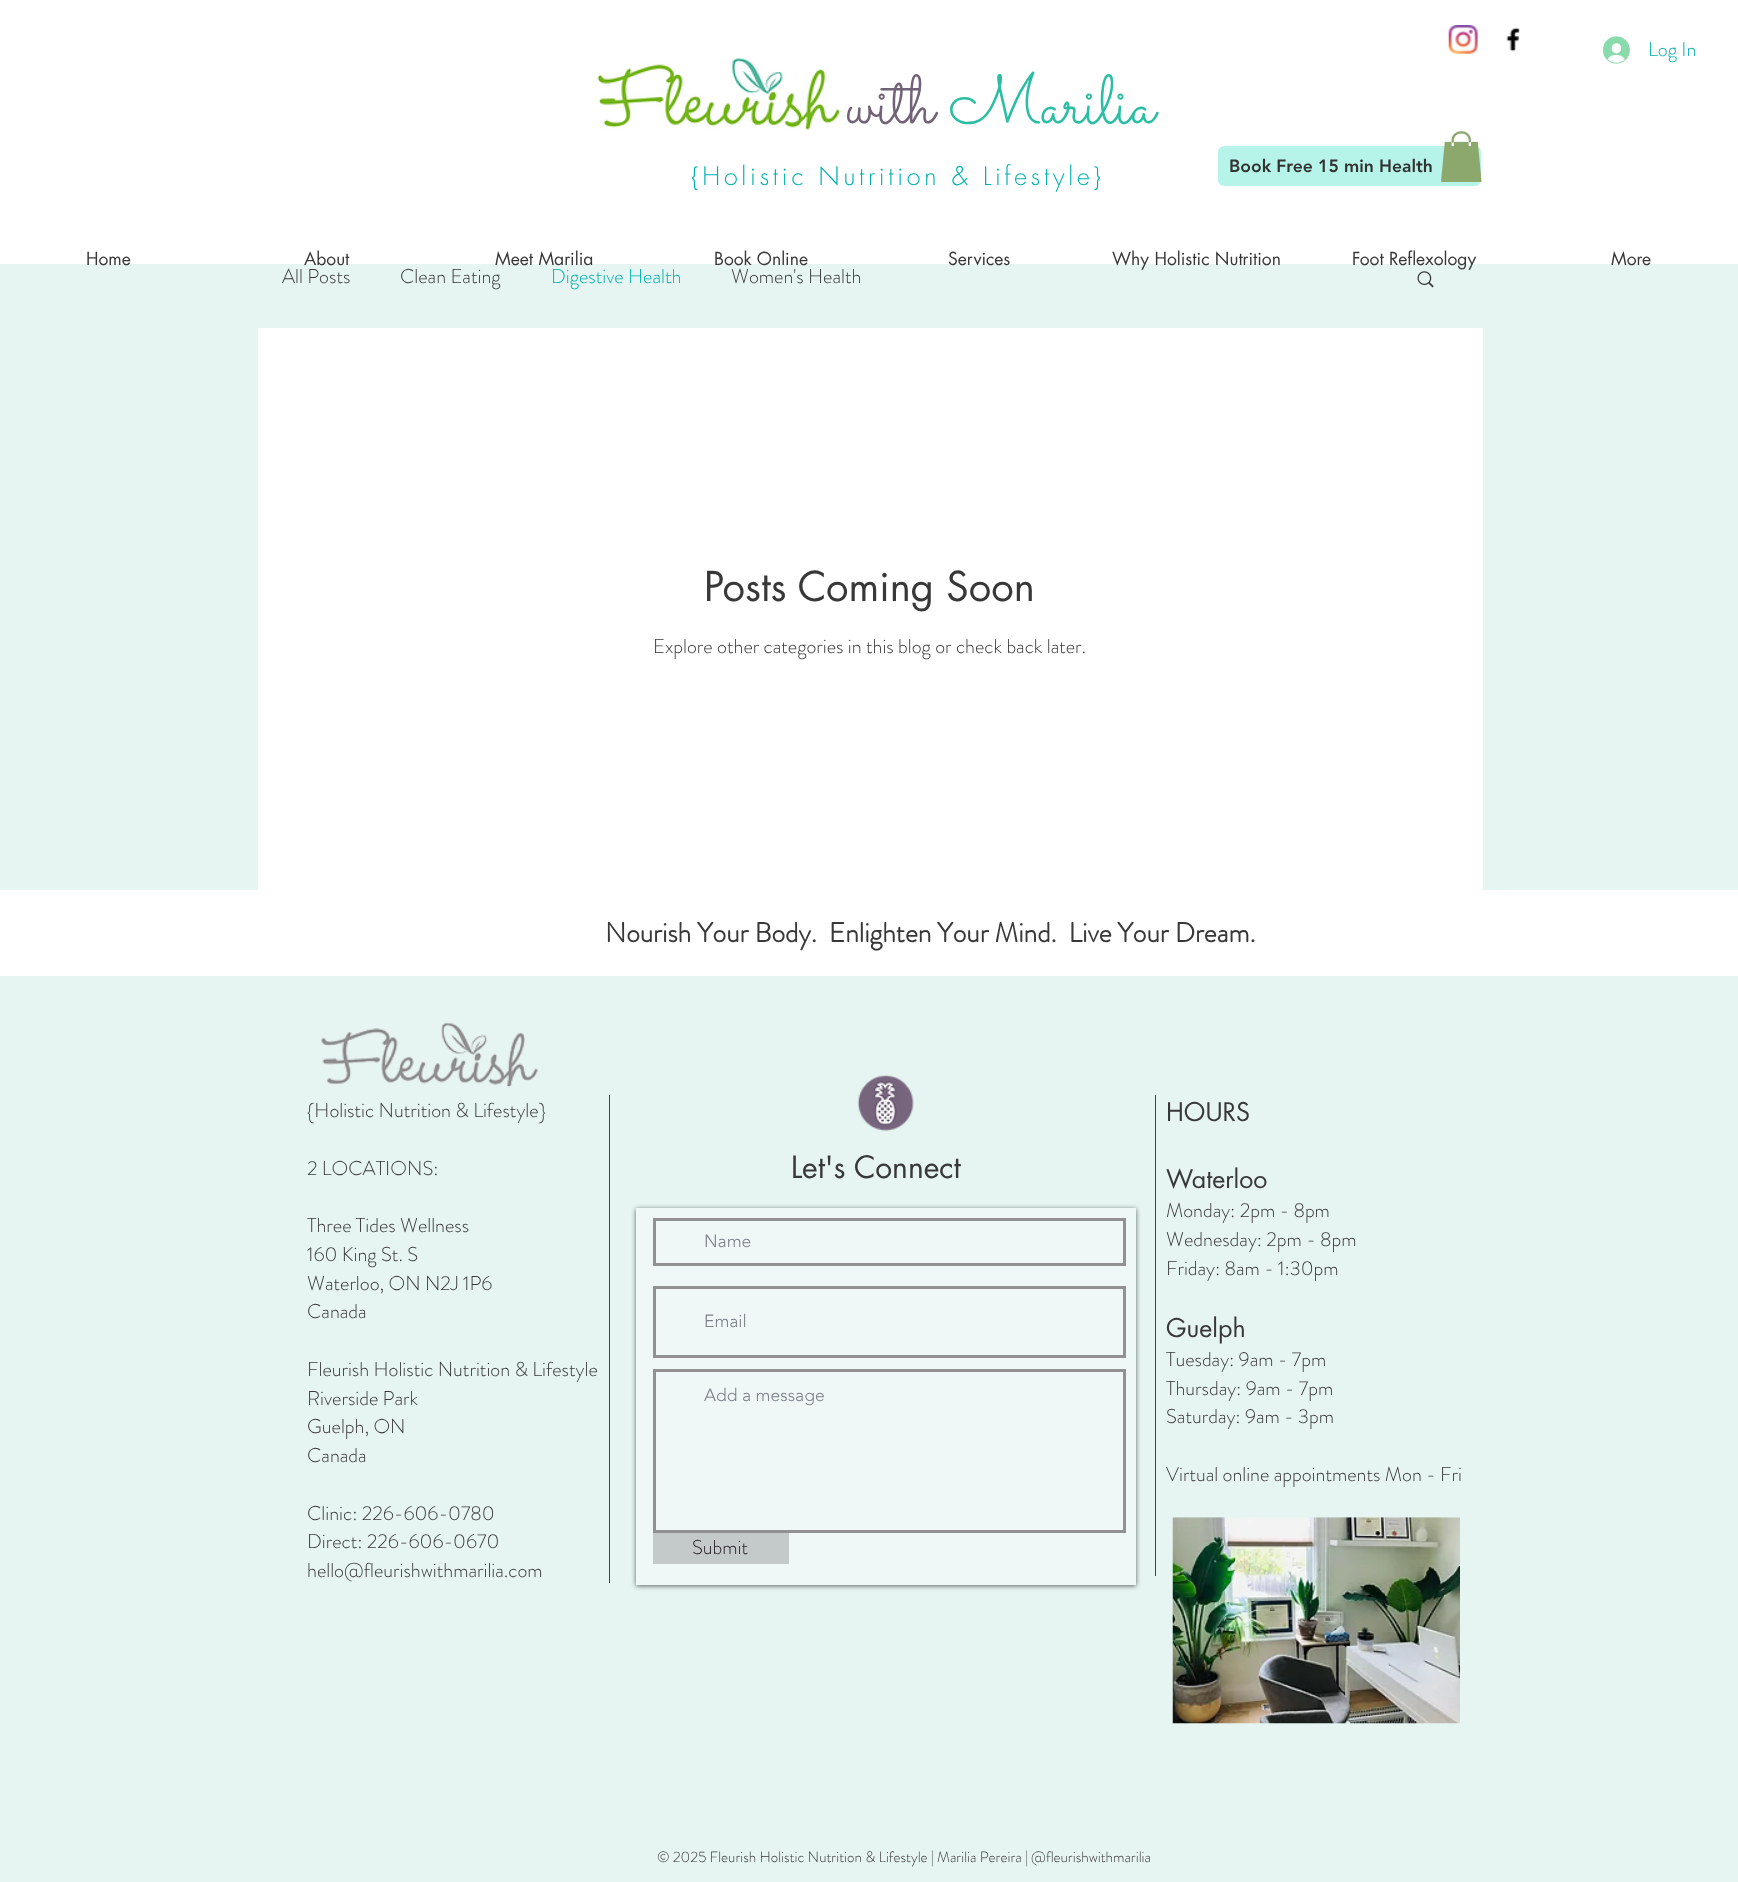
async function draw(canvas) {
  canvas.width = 1738;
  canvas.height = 1882;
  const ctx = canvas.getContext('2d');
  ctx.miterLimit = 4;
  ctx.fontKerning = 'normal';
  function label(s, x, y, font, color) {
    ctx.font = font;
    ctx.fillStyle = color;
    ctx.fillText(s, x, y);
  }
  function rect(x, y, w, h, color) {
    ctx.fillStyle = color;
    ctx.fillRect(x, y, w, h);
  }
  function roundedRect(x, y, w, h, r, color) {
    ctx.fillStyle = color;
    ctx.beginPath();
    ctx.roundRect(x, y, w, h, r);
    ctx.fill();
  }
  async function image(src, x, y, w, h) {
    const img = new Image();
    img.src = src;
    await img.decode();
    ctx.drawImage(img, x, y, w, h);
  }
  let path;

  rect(0, 0, 1738, 1882, '#e6f5f2');
  rect(0, 0, 1738, 264, '#fff');
  await image('assets/img1.png', 1448, 25, 30, 29);
  await image('assets/img2.png', 1506, 27, 14, 25);
  await image('assets/img3.png', 1603, 36, 27, 28);
  label('Log In', 1648, 56, '300 20px "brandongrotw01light"', '#01b1af');
  await image('assets/img4.png', 597, 58, 244, 72);
  label('with', 846, 123, '69px Sacramento', '#726277');
  label('Marilia', 949, 123, '69px Sacramento', '#2bbea4');
  ctx.letterSpacing = '3.75px';
  label('{Holistic Nutrition & Lifestyle}', 691, 185, '300 25px futura', '#01b1af');
  roundedRect(1218, 146, 263, 40, 6, '#b6f3e8');
  ctx.letterSpacing = '0px';
  label('Book Free 15 min Health', 1229, 172, '900 17.5px "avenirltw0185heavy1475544"', '#323232');
  await image('assets/img5.png', 1441, 131, 41, 51);
  label('Home', 86, 265, '17.5px futura', '#383838');
  label('About', 304, 265, '17.5px futura', '#383838');
  label('Meet Marilia', 495, 265, '17.5px futura', '#383838');
  label('Book Online', 714, 265, '17.5px futura', '#383838');
  label('Services', 948, 265, '17.5px futura', '#383838');
  label('Why Holistic Nutrition', 1112, 265, '17.5px futura', '#383838');
  label('Foot Reflexology', 1352, 265, '17.5px futura', '#383838');
  label('More', 1611, 265, '17.5px futura', '#383838');
  rect(258, 328, 1225, 562, '#fff');
  label('All Posts', 282, 283, '300 20px "brandongrotw01light"', '#383838');
  label('Clean Eating', 400, 283, '300 20px "brandongrotw01light"', '#383838');
  label('Digestive Health', 551, 283, '300 20px "brandongrotw01light"', '#01b1af');
  label('Women\'s Health', 731, 283, '300 20px "brandongrotw01light"', '#383838');
  await image('assets/img6.png', 1417, 271, 17, 17);
  label('Posts Coming Soon', 704, 601, '40px futura', '#383838');
  label('Explore other categories in this blog or check back later.', 653, 653, '300 20px "brandongrotw01light"', '#383838');
  rect(0, 890, 1738, 86, '#fff');
  label('Nourish Your Body.  Enlighten Your Mind.  Live Your Dream.', 605, 942, 'bold 27.5px "brandongrotw01light"', '#383838');
  await image('assets/img7.png', 321, 1022, 217, 66);
  label('{Holistic Nutrition & Lifestyle}', 307, 1117, '300 20px "brandongrotw01light"', '#383838');
  label('2 LOCATIONS:', 307, 1175, '300 20px "brandongrotw01light"', '#383838');
  label('Three Tides Wellness', 307, 1232, '300 20px "brandongrotw01light"', '#383838');
  label('160 King St. S', 307, 1261, '300 20px "brandongrotw01light"', '#383838');
  label('Waterloo, ON N2J 1P6', 307, 1290, '300 20px "brandongrotw01light"', '#383838');
  label('Canada', 307, 1318, '300 20px "brandongrotw01light"', '#383838');
  label('Fleurish Holistic Nutrition & Lifestyle', 307, 1376, '300 20px "brandongrotw01light"', '#383838');
  label('Riverside Park', 307, 1405, '300 20px "brandongrotw01light"', '#383838');
  label('Guelph, ON', 307, 1433, '300 20px "brandongrotw01light"', '#383838');
  label('Canada', 307, 1462, '300 20px "brandongrotw01light"', '#383838');
  label('Clinic: 226-606-0780', 307, 1520, '300 20px "brandongrotw01light"', '#383838');
  label('Direct: 226-606-0670', 307, 1548, '300 20px "brandongrotw01light"', '#383838');
  label('hello@fleurishwithmarilia.com', 307, 1577, '300 20px "brandongrotw01light"', '#383838');
  rect(609, 1095, 1, 488, '#424242');
  await image('assets/img8.png', 857, 1074, 57, 58);
  rect(1155, 1095, 1, 481, '#424242');
  label('HOURS', 1166, 1121, '25px futura', '#383838');
  label('Waterloo', 1166, 1188, '25px futura', '#383838');
  label('Monday: 2pm - 8pm', 1166, 1217, '300 20px "brandongrotw01light"', '#383838');
  label('Wednesday: 2pm - 8pm', 1166, 1246, '300 20px "brandongrotw01light"', '#383838');
  label('Friday: 8am - 1:30pm', 1166, 1275, '300 20px "brandongrotw01light"', '#383838');
  label('Guelph', 1166, 1337, '25px futura', '#383838');
  label('Tuesday: 9am - 7pm', 1166, 1366, '300 20px "brandongrotw01light"', '#383838');
  label('Thursday: 9am - 7pm', 1166, 1395, '300 20px "brandongrotw01light"', '#383838');
  label('Saturday: 9am - 3pm', 1166, 1423, '300 20px "brandongrotw01light"', '#383838');
  label('Virtual online appointments Mon - Fri', 1166, 1481, '300 20px "brandongrotw01light"', '#383838');
  label('Let\'s Connect', 791, 1178, '30px futura', '#383838');
  ctx.save();
  path = new Path2D('M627 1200H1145V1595H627ZM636 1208H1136V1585H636Z');
  ctx.clip(path, 'evenodd');
  ctx.fillStyle = '#00000099';
  ctx.filter = 'blur(2.5px)';
  ctx.beginPath();
  ctx.rect(636, 1209, 500, 377);
  ctx.fill();
  ctx.filter = 'none';
  ctx.restore();
  rect(636, 1208, 500, 377, '#ffffff5c');
  ctx.strokeStyle = '#919191';
  ctx.lineWidth = 3;
  ctx.strokeRect(654.5, 1219.5, 470, 45);
  label('Name', 704, 1247, '300 17.5px "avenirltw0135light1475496"', '#7f808a');
  ctx.strokeRect(654.5, 1287.5, 470, 69);
  label('Email', 704, 1327, '300 17.5px "avenirltw0135light1475496"', '#7f808a');
  ctx.strokeRect(654.5, 1370.5, 470, 161);
  label('Add a message', 704, 1401, '300 17.5px "avenirltw0135light1475496"', '#7f808a');
  rect(653, 1533, 136, 31, '#c4cac9');
  label('Submit', 692, 1554, '300 20px "brandongrotw01light"', '#262027');
  await image('assets/img9.png', 1172, 1517, 288, 207);
  label('© 2025 Fleurish Holistic Nutrition & Lifestyle | Marilia Pereira | @fleurishwithmarilia', 657, 1862, '300 15px "brandongrotw01light"', '#383838');
}

draw(document.querySelector('canvas'));
